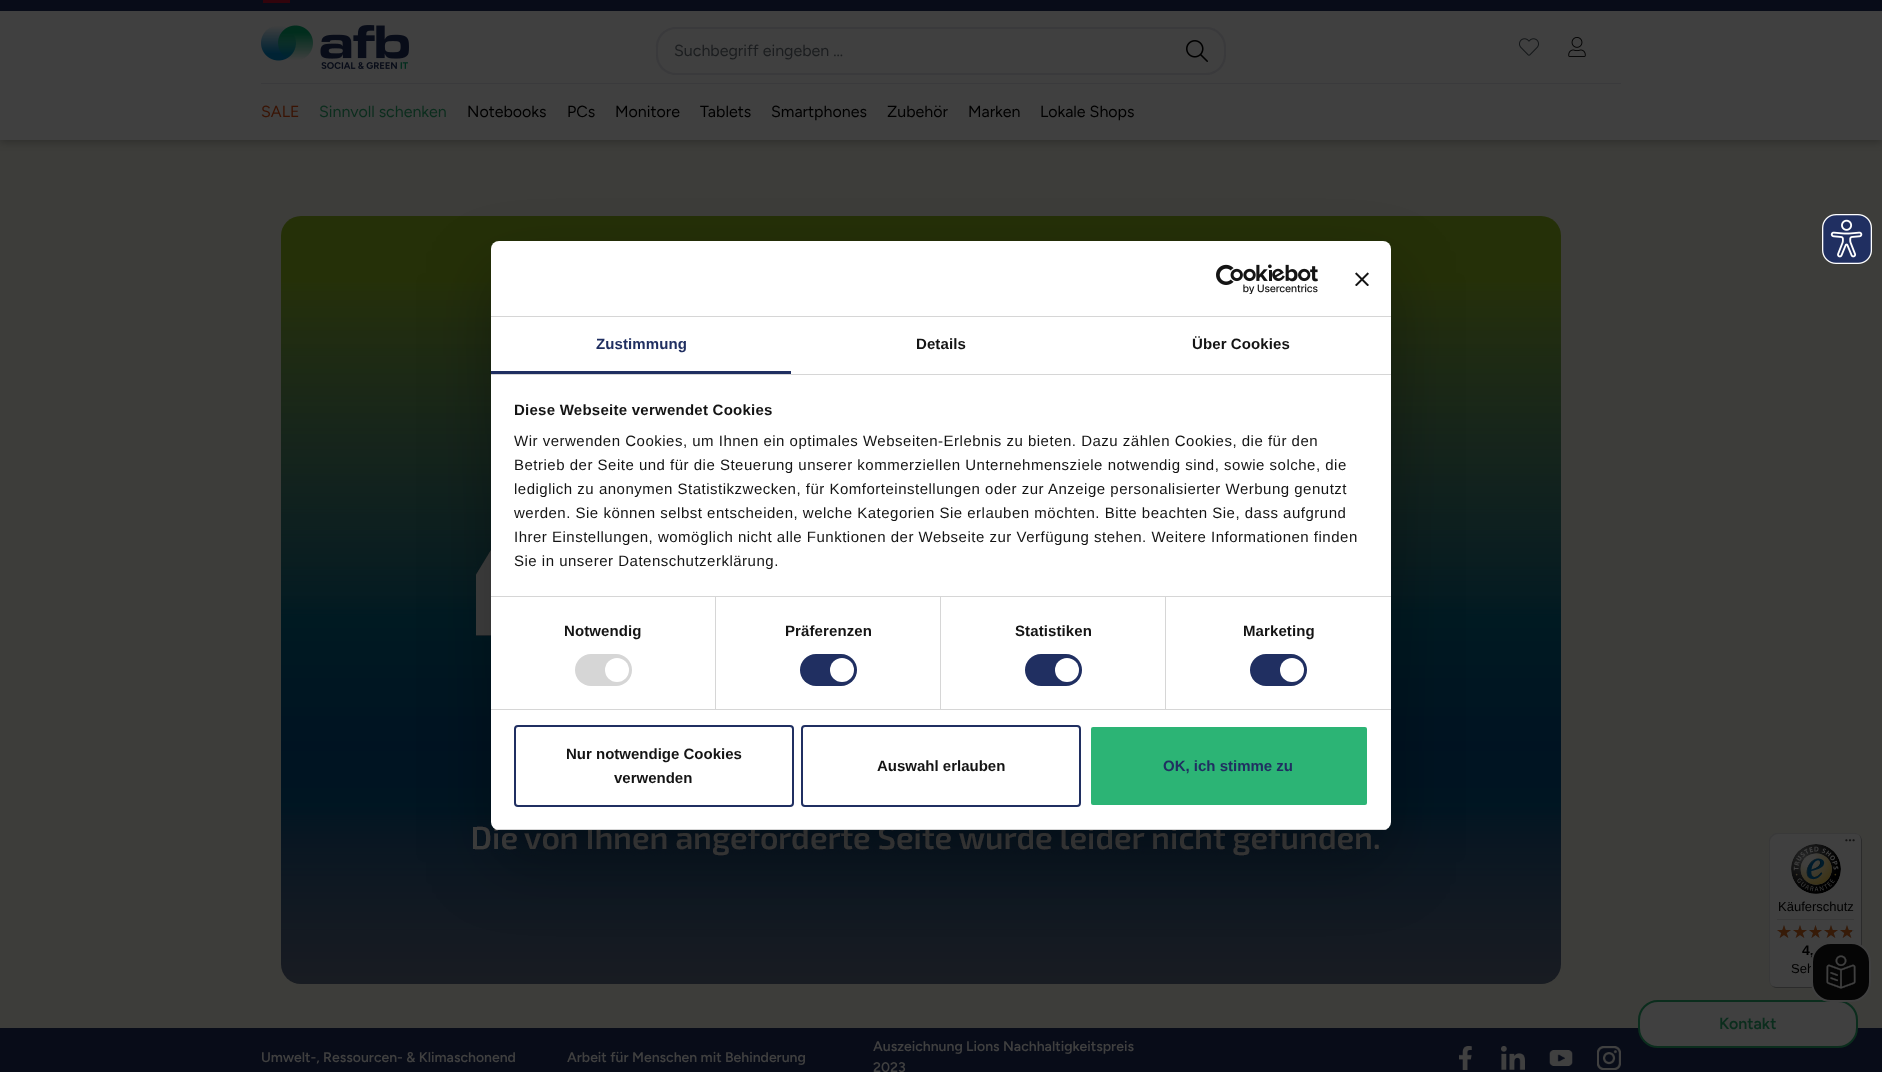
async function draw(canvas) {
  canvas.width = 1882;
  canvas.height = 1072;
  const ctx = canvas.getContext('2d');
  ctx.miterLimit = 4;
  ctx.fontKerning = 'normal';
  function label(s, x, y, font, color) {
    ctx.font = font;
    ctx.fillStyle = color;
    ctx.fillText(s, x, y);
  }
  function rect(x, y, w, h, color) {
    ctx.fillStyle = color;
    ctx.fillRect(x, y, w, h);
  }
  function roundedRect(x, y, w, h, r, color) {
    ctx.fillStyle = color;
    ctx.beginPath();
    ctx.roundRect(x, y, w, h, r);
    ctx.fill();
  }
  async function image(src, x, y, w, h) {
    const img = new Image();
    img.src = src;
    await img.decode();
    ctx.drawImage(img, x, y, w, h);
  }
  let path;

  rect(0, 0, 1882, 1072, '#3d3d3a');
  ctx.fillStyle = '#00000040';
  ctx.filter = 'blur(4px)';
  ctx.beginPath();
  ctx.rect(0, -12, 1882, 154);
  ctx.fill();
  ctx.filter = 'none';
  rect(0, 11, 1882, 129, '#404040');
  rect(0, 0, 1882, 11, '#080c18');
  rect(263, 0, 27, 3, '#32040c');
  await image('assets/img1.png', 261, 25, 148, 44);
  ctx.fillStyle = '#3a3a3c';
  path = new Path2D('M676 27H1172V75H676C665 75 656 66 656 55V47C656 36 665 27 676 27ZM676 29H1172V73H676C666 73 658 65 658 55V47C658 37 666 29 676 29Z');
  ctx.fill(path, 'evenodd');
  label('Suchbegriff eingeben ...', 674, 56, '16px Figtree', '#1b1d1f');
  ctx.fillStyle = '#404040';
  ctx.beginPath();
  ctx.roundRect(1170, 27, 56, 48, [0, 20, 20, 0]);
  ctx.fill();
  ctx.fillStyle = '#3a3a3c';
  path = new Path2D('M1170 27H1206C1217 27 1226 36 1226 47V55C1226 66 1217 75 1206 75H1170ZM1170 29H1206C1216 29 1224 37 1224 47V55C1224 65 1216 73 1206 73H1170Z');
  ctx.fill(path, 'evenodd');
  await image('assets/img2.png', 1186, 40, 22, 22);
  await image('assets/img3.png', 1519, 38, 20, 18);
  await image('assets/img4.png', 1568, 37, 18, 20);
  rect(261, 83, 1360, 1, '#3a3a3c');
  label('SALE', 261, 117, '16px Figtree', '#3a1303');
  label('Sinnvoll schenken', 319, 117, '16px Figtree', '#0b2d1d');
  label('Notebooks', 467, 117, '16px Figtree', '#000');
  label('PCs', 567, 117, '16px Figtree', '#000');
  label('Monitore', 615, 117, '16px Figtree', '#000');
  label('Tablets', 700, 117, '16px Figtree', '#000');
  label('Smartphones', 771, 117, '16px Figtree', '#000');
  label('Zubehör', 887, 117, '16px Figtree', '#000');
  label('Marken', 968, 117, '16px Figtree', '#000');
  label('Lokale Shops', 1040, 117, '16px Figtree', '#000');
  await image('assets/img5.png', 281, 216, 1280, 768);
  await image('assets/img6.png', 1822, 214, 50, 50);
  ctx.fillStyle = '#0000004d';
  ctx.filter = 'blur(34px)';
  ctx.beginPath();
  ctx.roundRect(491, 273, 900, 589, 8);
  ctx.fill();
  ctx.filter = 'none';
  roundedRect(491, 241, 900, 589, 8, '#fff');
  rect(491, 316, 900, 1, '#d6d6d6');
  await image('assets/img7.png', 1216, 264, 102, 30);
  await image('assets/img8.png', 1355, 272, 14, 14);
  rect(491, 374, 900, 1, '#d6d6d6');
  rect(491, 371, 300, 3, '#202f61');
  ctx.letterSpacing = '0.1px';
  label('Zustimmung', 596, 349, 'bold 15px Liberation Sans', '#202f61');
  label('Details', 916, 349, 'bold 15px Liberation Sans', '#141414');
  label('Über Cookies', 1192, 349, 'bold 15px Liberation Sans', '#141414');
  rect(491, 596, 900, 1, '#d6d6d6');
  ctx.letterSpacing = '0.25px';
  label('Diese Webseite verwendet Cookies', 514, 415, 'bold 15px Liberation Sans', '#141414');
  ctx.letterSpacing = '0.5px';
  label('Wir verwenden Cookies, um Ihnen ein optimales Webseiten-Erlebnis zu bieten. Dazu zählen Cookies, die für den', 514, 446, '15px Liberation Sans', '#141414');
  label('Betrieb der Seite und für die Steuerung unserer kommerziellen Unternehmensziele notwendig sind, sowie solche, die', 514, 470, '15px Liberation Sans', '#141414');
  label('lediglich zu anonymen Statistikzwecken, für Komforteinstellungen oder zur Anzeige personalisierter Werbung genutzt', 514, 494, '15px Liberation Sans', '#141414');
  label('werden. Sie können selbst entscheiden, welche Kategorien Sie erlauben möchten. Bitte beachten Sie, dass aufgrund', 514, 518, '15px Liberation Sans', '#141414');
  label('Ihrer Einstellungen, womöglich nicht alle Funktionen der Webseite zur Verfügung stehen. Weitere Informationen finden', 514, 542, '15px Liberation Sans', '#141414');
  label('Sie in unserer Datenschutzerklärung.', 514, 566, '15px Liberation Sans', '#141414');
  rect(491, 709, 900, 1, '#d6d6d6');
  rect(715, 597, 1, 112, '#d6d6d6');
  ctx.letterSpacing = '0.1px';
  label('Notwendig', 564, 636, 'bold 15px Liberation Sans', '#141414');
  roundedRect(575, 654, 57, 32, 16, '#d6d6d6');
  ctx.fillStyle = '#fff';
  ctx.beginPath();
  ctx.arc(617, 670, 12, 0, 2 * Math.PI);
  ctx.fill();
  rect(940, 597, 1, 112, '#d6d6d6');
  label('Präferenzen', 785, 636, 'bold 15px Liberation Sans', '#141414');
  roundedRect(800, 654, 57, 32, 16, '#202f61');
  ctx.fillStyle = '#fff';
  ctx.beginPath();
  ctx.arc(842, 670, 12, 0, 2 * Math.PI);
  ctx.fill();
  rect(1165, 597, 1, 112, '#d6d6d6');
  label('Statistiken', 1015, 636, 'bold 15px Liberation Sans', '#141414');
  roundedRect(1025, 654, 57, 32, 16, '#202f61');
  ctx.fillStyle = '#fff';
  ctx.beginPath();
  ctx.arc(1067, 670, 12, 0, 2 * Math.PI);
  ctx.fill();
  label('Marketing', 1243, 636, 'bold 15px Liberation Sans', '#141414');
  roundedRect(1250, 654, 57, 32, 16, '#202f61');
  ctx.fillStyle = '#fff';
  ctx.beginPath();
  ctx.arc(1292, 670, 12, 0, 2 * Math.PI);
  ctx.fill();
  ctx.save();
  ctx.beginPath();
  ctx.roundRect(491, 241, 900, 589, 8);
  ctx.clip();
  rect(491, 829, 900, 1, '#d6d6d6');
  ctx.restore();
  ctx.beginPath();
  ctx.roundRect(515, 726, 278, 80, 3);
  ctx.strokeStyle = '#202f61';
  ctx.lineWidth = 2;
  ctx.stroke();
  ctx.letterSpacing = '0px';
  label('Nur notwendige Cookies', 566, 759, 'bold 15px Liberation Sans', '#141414');
  label('verwenden', 614, 783, 'bold 15px Liberation Sans', '#141414');
  ctx.beginPath();
  ctx.roundRect(802, 726, 278, 80, 3);
  ctx.stroke();
  label('Auswahl erlauben', 877, 771, 'bold 15px Liberation Sans', '#141414');
  ctx.fillStyle = '#2cb475';
  ctx.beginPath();
  ctx.roundRect(1090, 726, 278, 80, 3);
  ctx.fill();
  ctx.strokeStyle = '#fff';
  ctx.stroke();
  label('OK, ich stimme zu', 1163, 771, 'bold 15px Liberation Sans', '#202f61');
  roundedRect(1769, 833, 93, 155, 8, '#404040');
  ctx.fillStyle = '#0000001a';
  path = new Path2D('M1778 834H1855C1857 834 1859 835 1861 837C1859 835 1857 833 1854 833H1777C1773 833 1769 837 1769 841V980C1769 983 1771 985 1773 987C1771 985 1770 983 1770 981V842C1770 838 1774 834 1778 834Z');
  ctx.fill(path);
  ctx.fillStyle = '#00000033';
  path = new Path2D('M1770 984C1772 986 1774 988 1777 988H1854C1858 988 1862 984 1862 980V841C1862 838 1860 836 1858 834C1860 836 1861 838 1861 840V979C1861 983 1857 987 1853 987H1776C1774 987 1772 986 1770 984Z');
  ctx.fill(path);
  ctx.fillStyle = '#0d0d0d33';
  path = new Path2D('M1771 985C1772 987 1775 988 1777 988H1854C1858 988 1862 984 1862 980V841C1862 839 1861 836 1859 835C1860 836 1861 838 1861 840V979C1861 984 1858 987 1853 987H1776C1774 987 1772 986 1771 985Z');
  ctx.fill(path);
  await image('assets/img9.png', 1845, 839, 10, 3);
  await image('assets/img10.png', 1791, 844, 50, 50);
  label('Käuferschutz', 1778, 911, '13px Liberation Sans', '#000');
  rect(1777, 919, 77, 1, '#393939');
  await image('assets/img11.png', 1777, 925, 14, 13);
  await image('assets/img11.png', 1793, 925, 14, 13);
  await image('assets/img12.png', 1809, 925, 13, 13);
  await image('assets/img11.png', 1824, 925, 14, 13);
  await image('assets/img11.png', 1840, 925, 14, 13);
  await image('assets/img13.png', 1777, 925, 14, 13);
  await image('assets/img13.png', 1793, 925, 14, 13);
  await image('assets/img14.png', 1809, 925, 13, 13);
  await image('assets/img13.png', 1824, 925, 14, 13);
  await image('assets/img15.png', 1840, 925, 12, 13);
  label('4,', 1802, 955, 'bold 14px Liberation Sans', '#000');
  label('Seh', 1791, 973, '13px Liberation Sans', '#000');
  rect(0, 1028, 1882, 44, '#080c18');
  ctx.fillStyle = '#404040';
  ctx.beginPath();
  ctx.roundRect(1639, 1001, 218, 46, 19);
  ctx.fill();
  ctx.strokeStyle = '#0b2d1d';
  ctx.stroke();
  ctx.fillStyle = '#050505';
  ctx.beginPath();
  ctx.roundRect(1812, 943, 58, 58, 19);
  ctx.fill();
  ctx.strokeStyle = '#404040';
  ctx.stroke();
  await image('assets/img16.png', 1826, 955, 30, 34);
  label('Kontakt', 1719, 1029, '600 16px Figtree', '#0b2d1d');
  label('Umwelt-, Ressourcen- & Klimaschonend', 261, 1062, '600 14px Figtree', '#404040');
  label('Arbeit für Menschen mit Behinderung', 567, 1062, '600 14px Figtree', '#404040');
  label('Auszeichnung Lions Nachhaltigkeitspreis', 873, 1051, '600 14px Figtree', '#404040');
  label('2023', 873, 1072, '600 14px Figtree', '#404040');
  await image('assets/img17.png', 1459, 1046, 13, 24);
  await image('assets/img18.png', 1501, 1046, 24, 24);
  await image('assets/img19.png', 1549, 1049, 24, 18);
  await image('assets/img20.png', 1597, 1046, 24, 24);
}

draw(document.querySelector('canvas'));
